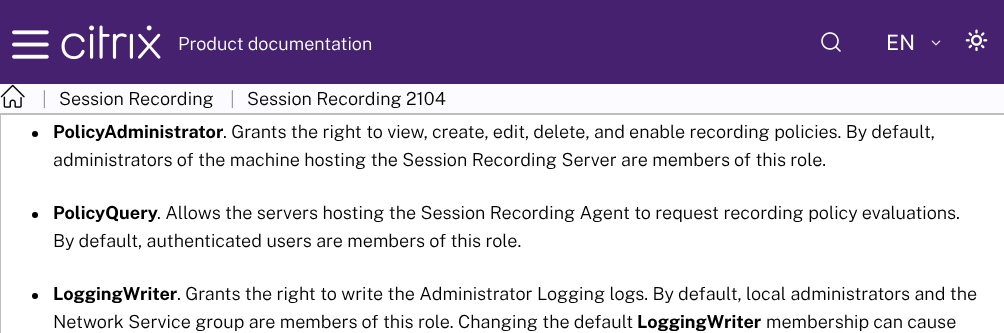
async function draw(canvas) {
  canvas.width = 1004;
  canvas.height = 333;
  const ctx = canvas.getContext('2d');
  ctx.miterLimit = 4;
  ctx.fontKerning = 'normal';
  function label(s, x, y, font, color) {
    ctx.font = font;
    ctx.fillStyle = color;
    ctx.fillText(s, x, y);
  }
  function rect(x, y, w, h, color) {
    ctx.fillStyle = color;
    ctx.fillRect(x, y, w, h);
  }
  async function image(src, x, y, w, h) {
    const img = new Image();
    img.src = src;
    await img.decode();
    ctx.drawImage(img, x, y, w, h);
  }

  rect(0, 0, 1004, 333, '#fff');
  rect(0, 0, 1004, 84, '#452170');
  await image('assets/img1.png', 12, 30, 37, 29);
  await image('assets/img2.png', 61, 25, 100, 35);
  label('Product documentation', 178, 50, '300 18px Public Sans', '#fff');
  await image('assets/img3.png', 821, 32, 20, 20);
  label('EN', 886, 50, '21px Public Sans', '#fff');
  await image('assets/img4.png', 931, 40, 10, 6);
  await image('assets/img5.png', 965, 29, 23, 23);
  rect(0, 115, 1, 218, '#bebebe');
  rect(0, 84, 1004, 29, '#fcfbff');
  rect(0, 113, 1004, 2, '#bebebe');
  await image('assets/img6.png', 0, 84, 25, 24);
  label('|', 42, 105, '300 18px Public Sans', '#979799');
  label('Session Recording', 59, 105, '300 18px Public Sans', '#000');
  label('|', 230, 105, '300 18px Public Sans', '#979799');
  label('Session Recording 2104', 247, 105, '300 18px Public Sans', '#000');
  ctx.beginPath();
  ctx.arc(35, 134, 3, 0, 2 * Math.PI);
  ctx.fill();
  label('PolicyAdministrator', 53, 138, 'bold 18px Public Sans', '#000');
  label('. Grants the right to view, create, edit, delete, and enable recording policies. By default,', 223, 138, '300 18px Public Sans', '#000');
  label('administrators of the machine hosting the Session Recording Server are members of this role.', 53, 166, '300 18px Public Sans', '#000');
  ctx.beginPath();
  ctx.arc(35, 215, 3, 0, 2 * Math.PI);
  ctx.fill();
  label('PolicyQuery', 53, 219, 'bold 18px Public Sans', '#000');
  label('. Allows the servers hosting the Session Recording Agent to request recording policy evaluations.', 157, 219, '300 18px Public Sans', '#000');
  label('By default, authenticated users are members of this role.', 53, 247, '300 18px Public Sans', '#000');
  ctx.beginPath();
  ctx.arc(35, 296, 3, 0, 2 * Math.PI);
  ctx.fill();
  label('LoggingWriter', 53, 300, 'bold 18px Public Sans', '#000');
  label('. Grants the right to write the Administrator Logging logs. By default, local administrators and the', 177, 300, '300 18px Public Sans', '#000');
  label('Network Service group are members of this role. Changing the default', 53, 328, '300 18px Public Sans', '#000');
  label('LoggingWriter', 637, 328, 'bold 18px Public Sans', '#000');
  label('membership can cause', 766, 328, '300 18px Public Sans', '#000');
}

draw(document.querySelector('canvas'));
